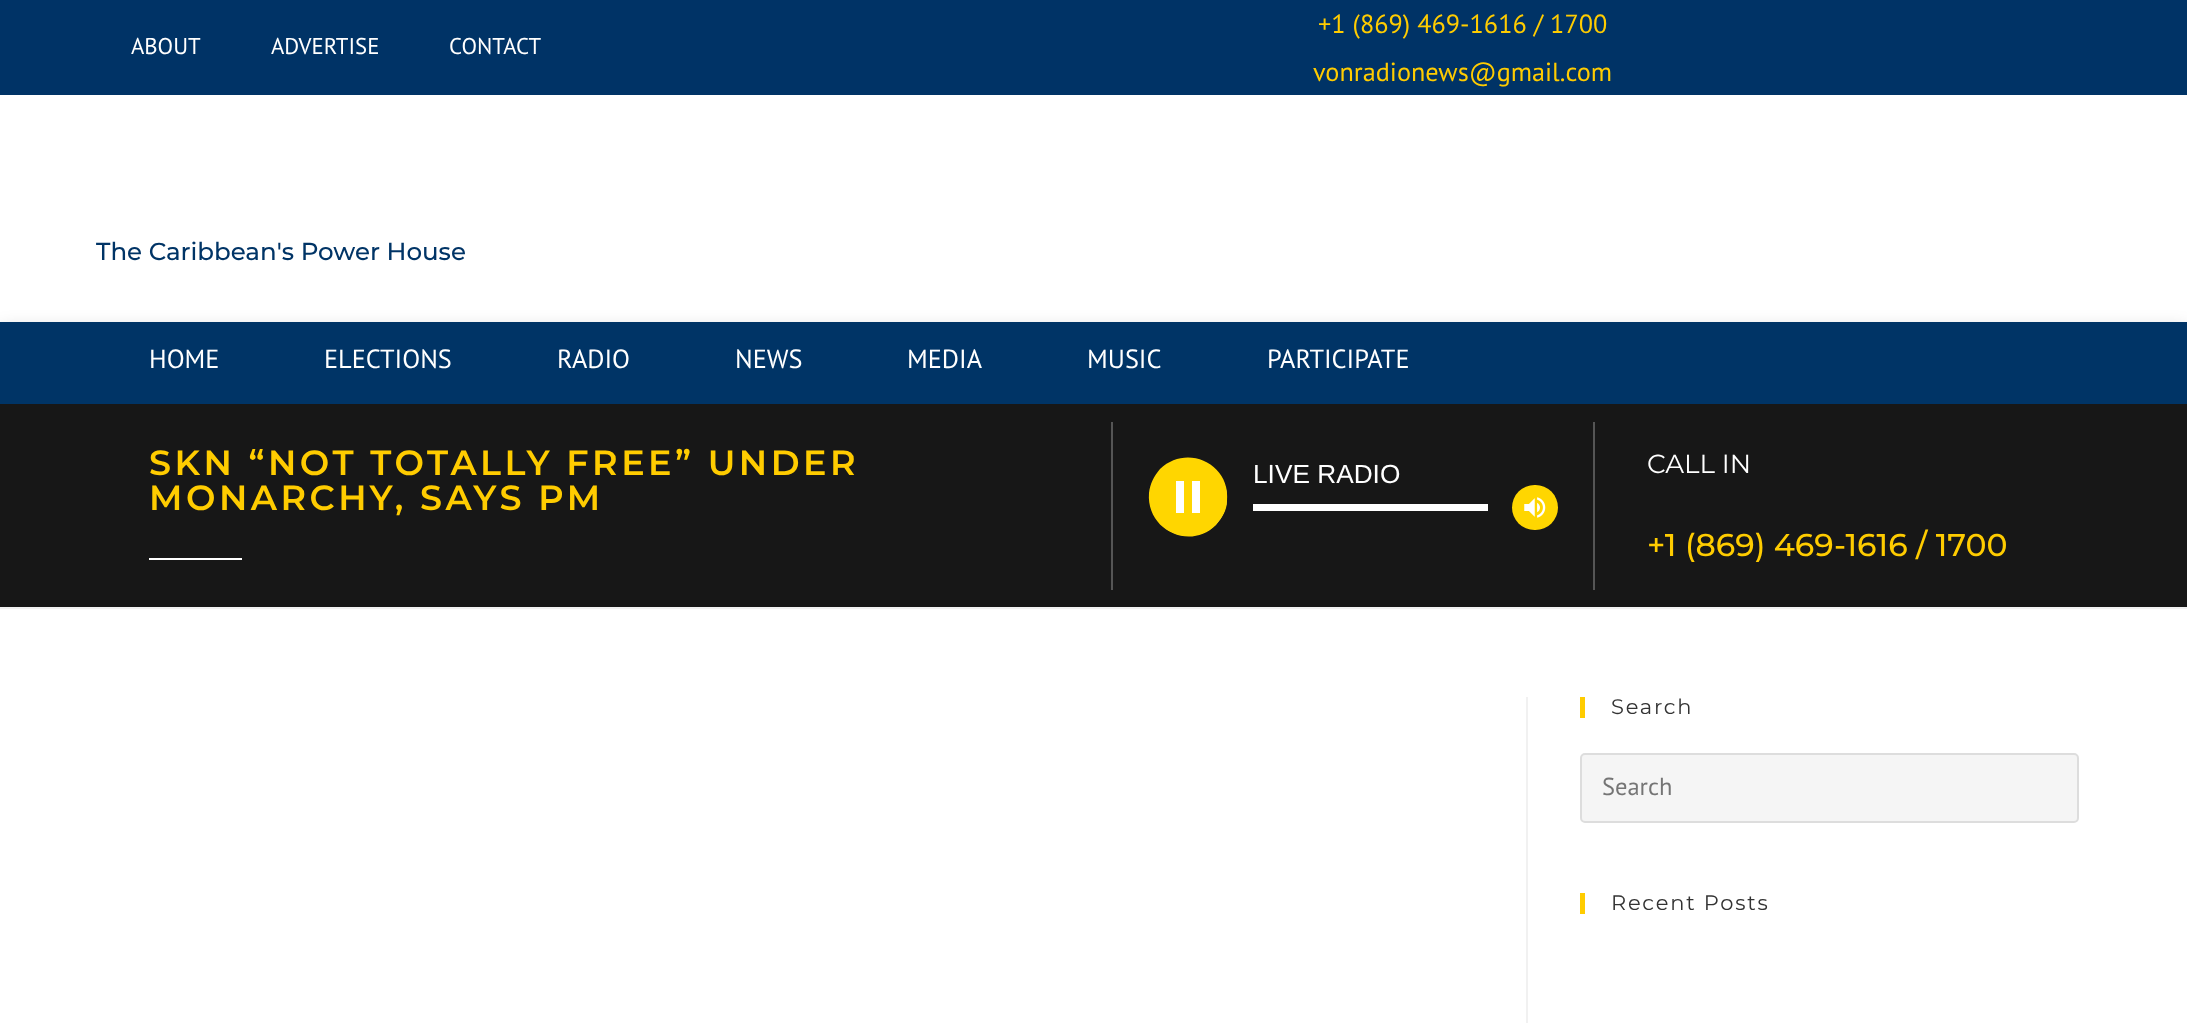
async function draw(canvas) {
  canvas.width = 2187;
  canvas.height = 1023;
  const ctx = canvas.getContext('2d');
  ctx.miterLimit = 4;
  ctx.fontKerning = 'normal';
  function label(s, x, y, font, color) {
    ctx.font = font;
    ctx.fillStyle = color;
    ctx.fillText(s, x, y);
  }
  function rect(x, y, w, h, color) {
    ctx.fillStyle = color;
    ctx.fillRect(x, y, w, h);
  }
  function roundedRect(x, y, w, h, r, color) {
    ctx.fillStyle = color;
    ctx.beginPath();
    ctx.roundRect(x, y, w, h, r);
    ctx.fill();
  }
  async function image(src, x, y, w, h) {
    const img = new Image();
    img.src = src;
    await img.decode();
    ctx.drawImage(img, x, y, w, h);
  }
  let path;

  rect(0, 0, 2187, 1023, '#fff');
  rect(0, 607, 2187, 2, '#f1f1f1');
  rect(0, 0, 2187, 95, '#036');
  label('ABOUT', 131, 54, '22.75px PT Sans', '#fff');
  label('ADVERTISE', 271, 54, '22.75px PT Sans', '#fff');
  label('CONTACT', 449, 54, '22.75px PT Sans', '#fff');
  label('+1 (869) 469-1616 / 1700', 1318, 33, '26.25px PT Sans', '#fc0');
  label('vonradionews@gmail.com', 1313, 81, '26.25px PT Sans', '#fc0');
  label('The Caribbean\'s Power House', 96, 260, '500 24.5px Montserrat', '#003466');
  ctx.fillStyle = '#00000033';
  ctx.filter = 'blur(9px)';
  ctx.beginPath();
  ctx.rect(0, 329, 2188, 82);
  ctx.fill();
  ctx.filter = 'none';
  rect(0, 322, 2187, 82, '#003466');
  label('HOME', 149, 368, '26.25px PT Sans', '#fff');
  label('ELECTIONS', 324, 368, '26.25px PT Sans', '#fff');
  label('RADIO', 557, 368, '26.25px PT Sans', '#fff');
  label('NEWS', 735, 368, '26.25px PT Sans', '#fff');
  label('MEDIA', 907, 368, '26.25px PT Sans', '#fff');
  label('MUSIC', 1087, 368, '26.25px PT Sans', '#fff');
  label('PARTICIPATE', 1267, 368, '26.25px PT Sans', '#fff');
  rect(0, 404, 2187, 203, '#171717');
  ctx.letterSpacing = '3.5px';
  label('SKN “NOT TOTALLY FREE” UNDER', 149, 475, '600 35px Montserrat', '#fc0');
  label('MONARCHY, SAYS PM', 149, 510, '600 35px Montserrat', '#fc0');
  rect(149, 558, 93, 2, '#fff');
  rect(1111, 422, 2, 168, '#555');
  ctx.fillStyle = '#fff';
  ctx.beginPath();
  ctx.arc(1188.5, 497.5, 38.5, 0, 2 * Math.PI);
  ctx.fill();
  ctx.fillStyle = '#ffd600';
  path = new Path2D('M1200 513V481H1192V513ZM1184 513V481H1176V513ZM1160 469C1187 443 1231 464 1227 501C1227 510 1222 518 1216 525C1190 551 1146 530 1149 493C1150 484 1154 476 1160 469Z');
  ctx.fill(path);
  ctx.letterSpacing = '0px';
  label('LIVE RADIO', 1253, 483, '26.25px Liberation Sans', '#fff');
  rect(1253, 504, 235, 7, '#fff');
  roundedRect(1512, 485, 46, 45, 22.5, '#ffd600');
  await image('assets/img1.png', 1524, 497, 22, 21);
  rect(1593, 422, 2, 168, '#555');
  label('CALL IN', 1647, 473, '26.25px Montserrat', '#fff');
  label('+1 (869) 469-1616 / 1700', 1647, 556, '500 31.5px Montserrat', '#fc0');
  rect(1526, 697, 2, 326, '#f1f1f1');
  rect(1580, 697, 5, 21, '#fc0');
  ctx.letterSpacing = '1.75px';
  label('Search', 1611, 714, '21px Montserrat', '#333');
  ctx.fillStyle = '#f5f5f5';
  ctx.beginPath();
  ctx.roundRect(1581, 754, 497, 68, 4);
  ctx.fill();
  ctx.strokeStyle = '#ddd';
  ctx.lineWidth = 2;
  ctx.stroke();
  ctx.letterSpacing = '0px';
  label('Search', 1602, 795, '24.5px PT Sans', '#757575');
  rect(1580, 893, 5, 21, '#fc0');
  ctx.letterSpacing = '1.75px';
  label('Recent Posts', 1611, 910, '21px Montserrat', '#333');
}

draw(document.querySelector('canvas'));
